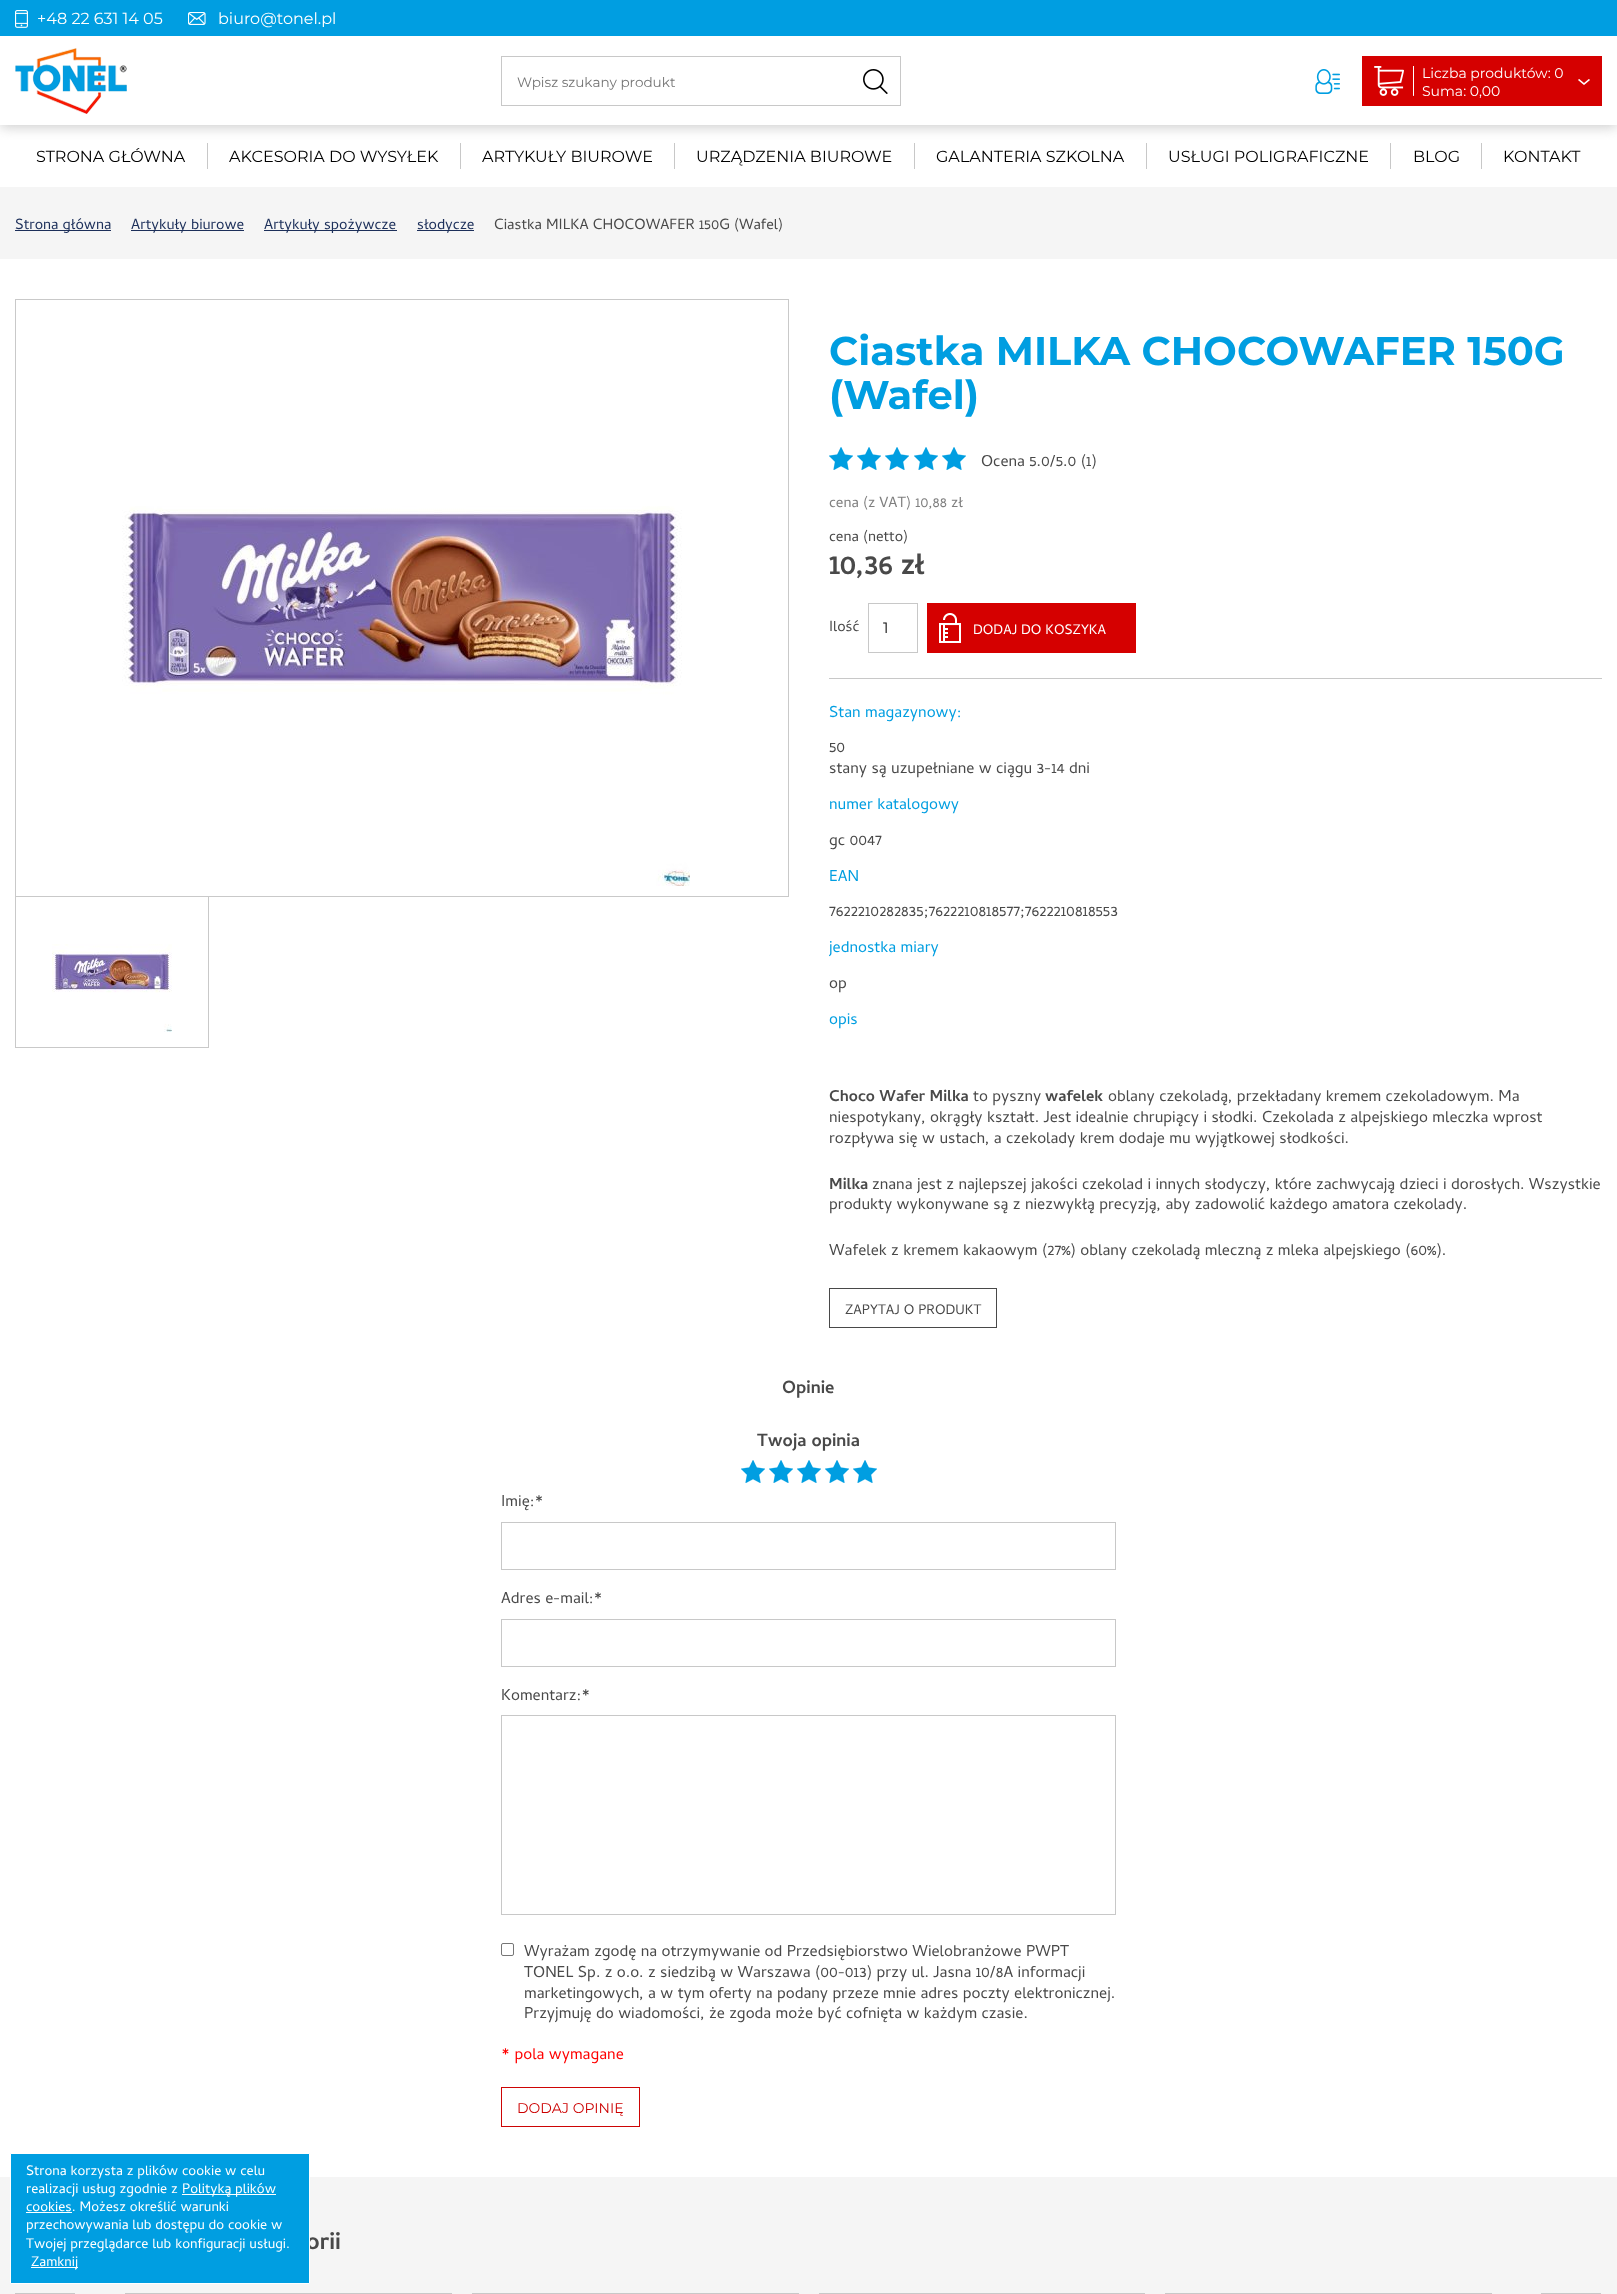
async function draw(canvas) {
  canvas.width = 1617;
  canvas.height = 2294;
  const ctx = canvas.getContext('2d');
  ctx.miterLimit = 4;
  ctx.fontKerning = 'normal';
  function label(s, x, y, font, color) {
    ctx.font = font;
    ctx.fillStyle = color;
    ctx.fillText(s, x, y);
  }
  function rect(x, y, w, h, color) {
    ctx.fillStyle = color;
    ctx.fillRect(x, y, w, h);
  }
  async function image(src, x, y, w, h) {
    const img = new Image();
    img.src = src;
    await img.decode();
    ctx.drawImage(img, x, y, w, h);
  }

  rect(0, 0, 1617, 2294, '#fff');
  rect(207, 143, 1, 26, '#c8c8c8');
  rect(460, 143, 1, 26, '#c8c8c8');
  rect(674, 143, 1, 26, '#c8c8c8');
  rect(914, 143, 1, 26, '#c8c8c8');
  rect(1146, 143, 1, 26, '#c8c8c8');
  rect(1390, 143, 1, 26, '#c8c8c8');
  rect(1481, 143, 1, 26, '#c8c8c8');
  ctx.save();
  ctx.beginPath();
  ctx.rect(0, 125, 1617, 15);
  ctx.clip();
  ctx.fillStyle = '#cbcbcb';
  ctx.filter = 'blur(6.5px)';
  ctx.beginPath();
  ctx.rect(0, 2, 1617, 125);
  ctx.fill();
  ctx.filter = 'none';
  ctx.restore();
  rect(0, 0, 1617, 36, '#009ee1');
  await image('assets/img1.png', 15, 10, 13, 18);
  label('+48 22 631 14 05', 37, 24, '16px Montserrat', '#fff');
  await image('assets/img2.png', 188, 12, 18, 13);
  label('biuro@tonel.pl', 218, 24, '16px Montserrat', '#fff');
  await image('assets/img3.png', 15, 48, 112, 66);
  ctx.strokeStyle = '#c8c8c8';
  ctx.strokeRect(501.5, 56.5, 399, 49);
  label('Wpisz szukany produkt', 517, 87, '13.6px Montserrat', '#757575');
  await image('assets/img4.png', 863, 69, 25, 25);
  await image('assets/img5.png', 1315, 69, 25, 25);
  rect(1362, 56, 240, 50, '#d50000');
  await image('assets/img6.png', 1374, 66, 40, 30);
  label('Liczba produktów: 0', 1422, 78, '14px Montserrat', '#fff');
  await image('assets/img7.png', 1578, 79, 12, 6);
  label('Suma: 0,00', 1422, 96, '14px Montserrat', '#fff');
  label('STRONA GŁÓWNA', 36, 162, '16px Montserrat', '#000');
  label('AKCESORIA DO WYSYŁEK', 229, 162, '16px Montserrat', '#000');
  label('ARTYKUŁY BIUROWE', 482, 162, '16px Montserrat', '#000');
  label('URZĄDZENIA BIUROWE', 696, 162, '16px Montserrat', '#000');
  label('GALANTERIA SZKOLNA', 936, 162, '16px Montserrat', '#000');
  label('USŁUGI POLIGRAFICZNE', 1168, 162, '16px Montserrat', '#000');
  label('BLOG', 1413, 162, '16px Montserrat', '#000');
  label('KONTAKT', 1503, 162, '16px Montserrat', '#000');
  rect(0, 187, 1617, 72, '#f5f5f5');
  rect(15, 230, 96, 1, '#1c2f5a');
  label('Strona główna', 15, 229, '15px Cambay', '#1c2f5a');
  rect(131, 230, 113, 1, '#1c2f5a');
  label('Artykuły biurowe', 131, 229, '15px Cambay', '#1c2f5a');
  rect(264, 230, 133, 1, '#1c2f5a');
  label('Artykuły spożywcze', 264, 229, '15px Cambay', '#1c2f5a');
  rect(417, 230, 57, 1, '#1c2f5a');
  label('słodycze', 417, 229, '15px Cambay', '#1c2f5a');
  label('Ciastka MILKA CHOCOWAFER 150G (Wafel)', 494, 229, '15px Cambay', '#494949');
  ctx.strokeStyle = '#c9c9c9';
  ctx.strokeRect(15.5, 299.5, 773, 597);
  await image('assets/img8.png', 122, 506, 568, 380);
  rect(15, 897, 1, 151, '#c9c9c9');
  rect(208, 897, 1, 151, '#c9c9c9');
  rect(16, 1047, 193, 1, '#c9c9c9');
  await image('assets/img9.png', 52, 944, 120, 88);
  label('Ciastka MILKA CHOCOWAFER 150G', 829, 365, 'bold 40px Montserrat', '#009ee1');
  label('(Wafel)', 829, 409, 'bold 40px Montserrat', '#009ee1');
  await image('assets/img10.png', 829, 447, 24, 23);
  await image('assets/img10.png', 857, 447, 24, 23);
  await image('assets/img10.png', 885, 447, 24, 23);
  await image('assets/img10.png', 914, 447, 24, 23);
  await image('assets/img10.png', 942, 447, 24, 23);
  label('Ocena 5.0/5.0 (1)', 981, 466, '16px Cambay', '#494949');
  label('cena (z VAT) 10,88 zł', 829, 507, '15px Cambay', '#7f7f7f');
  label('cena (netto)', 829, 541, '15px Cambay', '#494949');
  label('10,36 zł', 829, 574, 'bold 30px Cambay', '#494949');
  rect(829, 678, 773, 1, '#c8c8c8');
  label('Ilość', 829, 631, '15px Cambay', '#494949');
  ctx.strokeStyle = '#c8c8c8';
  ctx.strokeRect(868.5, 603.5, 49, 49);
  label('1', 883, 633, '15px Montserrat', '#000');
  rect(927, 603, 209, 50, '#d50000');
  await image('assets/img11.png', 939, 613, 22, 30);
  label('DODAJ DO KOSZYKA', 973, 634, '14px Cambay', '#fff');
  label('Stan magazynowy:', 829, 717, '16px Cambay', '#009ee1');
  label('50', 829, 752, '16px Cambay', '#494949');
  label('stany są uzupełniane w ciągu 3-14 dni', 829, 773, '16px Cambay', '#494949');
  label('numer katalogowy', 829, 809, '16px Cambay', '#009ee1');
  label('gc 0047', 829, 845, '16px Cambay', '#494949');
  label('EAN', 829, 881, '16px Cambay', '#009ee1');
  label('7622210282835;7622210818577;7622210818553', 829, 916, '16px Cambay', '#494949');
  label('jednostka miary', 829, 952, '16px Cambay', '#009ee1');
  label('op', 829, 988, '16px Cambay', '#494949');
  label('opis', 829, 1024, '16px Cambay', '#009ee1');
  label('Choco Wafer Milka', 829, 1101, 'bold 16px Cambay', '#494949');
  label('to pyszny', 973, 1101, '16px Cambay', '#494949');
  label('wafelek', 1045, 1101, 'bold 16px Cambay', '#494949');
  label('oblany czekoladą, przekładany kremem czekoladowym. Ma', 1108, 1101, '16px Cambay', '#494949');
  label('niespotykany, okrągły kształt. Jest idealnie chrupiący i słodki. Czekolada z alpejskiego mleczka wprost', 829, 1122, '16px Cambay', '#494949');
  label('rozpływa się w ustach, a czekolady krem dodaje mu wyjątkowej słodkości.', 829, 1143, '16px Cambay', '#494949');
  label('Milka', 829, 1189, 'bold 16px Cambay', '#494949');
  label('znana jest z najlepszej jakości czekolad i innych słodyczy, które zachwycają dzieci i dorosłych. Wszystkie', 872, 1189, '16px Cambay', '#494949');
  label('produkty wykonywane są z niezwykłą precyzją, aby zadowolić każdego amatora czekolady.', 829, 1209, '16px Cambay', '#494949');
  label('Wafelek z kremem kakaowym (27%) oblany czekoladą mleczną z mleka alpejskiego (60%).', 829, 1255, '16px Cambay', '#494949');
  ctx.strokeStyle = '#494949';
  ctx.strokeRect(829.5, 1288.5, 167, 39);
  label('ZAPYTAJ O PRODUKT', 845, 1314, '14px Cambay', '#494949');
  label('Opinie', 782, 1393, 'bold 18px Cambay', '#494949');
  label('Twoja opinia', 757, 1446, 'bold 18px Cambay', '#494949');
  await image('assets/img10.png', 741, 1460, 24, 23);
  await image('assets/img10.png', 769, 1460, 24, 23);
  await image('assets/img10.png', 797, 1460, 24, 23);
  await image('assets/img10.png', 825, 1460, 24, 23);
  await image('assets/img10.png', 853, 1460, 24, 23);
  label('Imię:*', 501, 1506, '16px Cambay', '#494949');
  ctx.strokeStyle = '#c8c8c8';
  ctx.strokeRect(501.5, 1522.5, 614, 47);
  label('Adres e-mail:*', 501, 1603, '16px Cambay', '#494949');
  ctx.strokeRect(501.5, 1619.5, 614, 47);
  label('Komentarz:*', 501, 1700, '16px Cambay', '#494949');
  ctx.strokeRect(501.5, 1715.5, 614, 199);
  ctx.beginPath();
  ctx.roundRect(501.5, 1943.5, 12, 12, 1.5);
  ctx.strokeStyle = '#767676';
  ctx.stroke();
  label('Wyrażam zgodę na otrzymywanie od Przedsiębiorstwo Wielobranżowe PWPT', 524, 1956, '16px Cambay', '#494949');
  label('TONEL Sp. z o.o. z siedzibą w Warszawa (00-013) przy ul. Jasna 10/8A informacji', 524, 1977, '16px Cambay', '#494949');
  label('marketingowych, a w tym oferty na podany przeze mnie adres poczty elektronicznej.', 524, 1998, '16px Cambay', '#494949');
  label('Przyjmuję do wiadomości, że zgoda może być cofnięta w każdym czasie.', 524, 2018, '16px Cambay', '#494949');
  label('* pola wymagane', 501, 2059, '16px Cambay', '#f00');
  ctx.strokeStyle = '#cd0505';
  ctx.strokeRect(501.5, 2087.5, 138, 39);
  label('DODAJ OPINIĘ', 517, 2113, '14px Montserrat', '#c00');
  rect(0, 2177, 1617, 117, '#f5f5f5');
  label('orii', 306, 2249, 'bold 24px Cambay', '#494949');
  ctx.fillStyle = '#009ee1';
  ctx.beginPath();
  ctx.rect(10.5, 2153.5, 299, 130);
  ctx.fill();
  ctx.strokeStyle = '#fff';
  ctx.stroke();
  label('Strona korzysta z plików cookie w celu', 26, 2175, '14px Cambay', '#fff');
  label('realizacji usług zgodnie z', 26, 2193, '14px Cambay', '#fff');
  rect(182, 2194, 94, 1, '#fff');
  label('Polityką plików', 182, 2193, '14px Cambay', '#fff');
  label('cookies. Możesz określić warunki', 26, 2211, '14px Cambay', '#fff');
  rect(26, 2212, 46, 1, '#fff');
  label('przechowywania lub dostępu do cookie w', 26, 2229, '14px Cambay', '#fff');
  label('Twojej przeglądarce lub konfiguracji usługi.', 26, 2248, '14px Cambay', '#fff');
  rect(31, 2267, 47, 1, '#fff');
  label('Zamknij', 31, 2266, '14px Cambay', '#fff');
  rect(15, 2293, 60, 1, '#c8c8c8');
  ctx.strokeStyle = '#c8c8c8';
  ctx.strokeRect(125.5, 2293.5, 326, 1);
  ctx.strokeRect(472.5, 2293.5, 326, 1);
  ctx.strokeRect(819.5, 2293.5, 325, 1);
  ctx.strokeRect(1165.5, 2293.5, 326, 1);
  rect(1541, 2293, 60, 1, '#c8c8c8');
}

draw(document.querySelector('canvas'));
